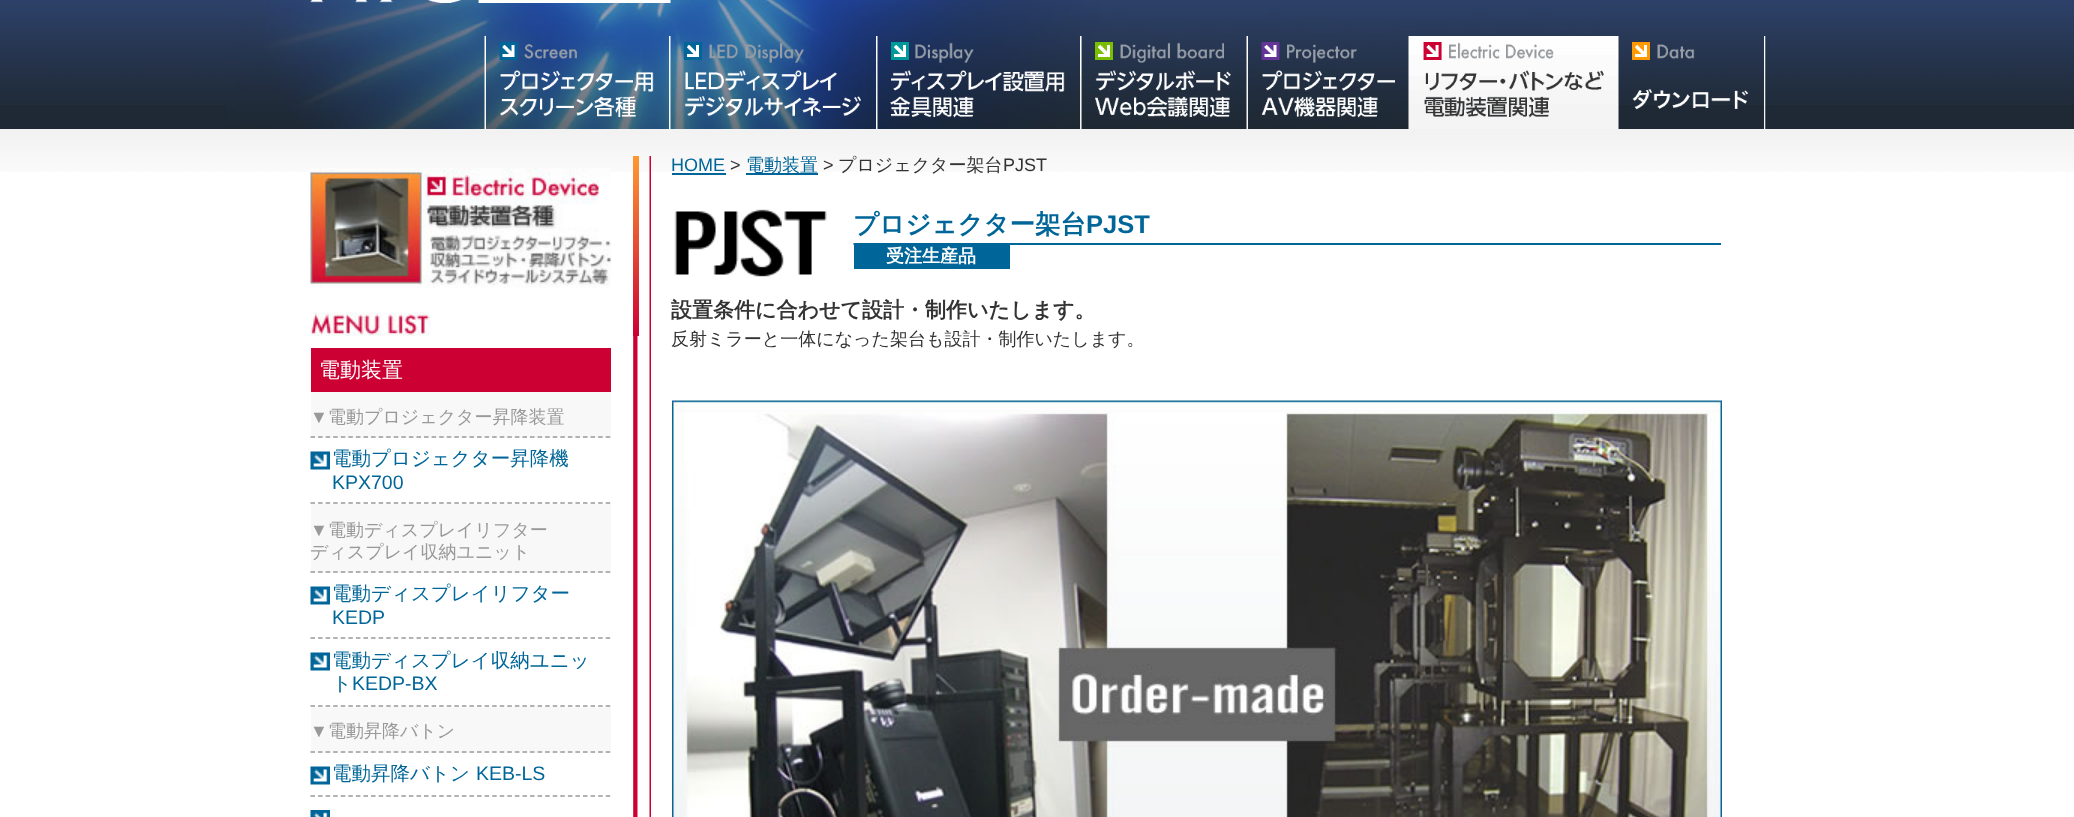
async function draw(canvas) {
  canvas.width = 2074;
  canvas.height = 817;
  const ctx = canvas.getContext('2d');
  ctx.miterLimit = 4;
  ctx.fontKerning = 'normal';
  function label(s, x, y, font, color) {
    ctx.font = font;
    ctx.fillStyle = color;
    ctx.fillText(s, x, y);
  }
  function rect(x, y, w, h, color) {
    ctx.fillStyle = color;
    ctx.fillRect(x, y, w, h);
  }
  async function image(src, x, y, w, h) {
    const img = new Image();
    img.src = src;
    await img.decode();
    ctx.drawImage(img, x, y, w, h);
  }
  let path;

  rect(0, 0, 2074, 817, '#1f2935');
  await image('assets/img1.png', 0, 0, 2074, 105);
  await image('assets/img2.png', 226, 0, 1378, 129);
  await image('assets/img3.png', 310, 0, 361, 3);
  await image('assets/img4.png', 484, 36, 170, 93);
  await image('assets/img5.png', 669, 36, 192, 93);
  await image('assets/img6.png', 876, 36, 189, 93);
  await image('assets/img7.png', 1080, 36, 151, 93);
  await image('assets/img8.png', 1246, 36, 149, 93);
  await image('assets/img9.png', 1408, 36, 209, 93);
  await image('assets/img10.png', 1617, 36, 149, 93);
  rect(0, 172, 2074, 645, '#fff');
  await image('assets/img11.png', 0, 129, 2074, 43);
  await image('assets/img12.png', 633, 156, 18, 661);
  await image('assets/img13.png', 633, 156, 6, 180);
  label('HOME', 671, 171, '18px Liberation Sans', '#069');
  rect(672, 173, 54, 2, '#069');
  label('>', 730, 171, '18px Liberation Sans', '#333');
  rect(746, 173, 72, 2, '#069');
  label('電動装置', 746, 171, '500 18px WenQuanYi Zen Hei', '#069');
  label('>', 823, 171, '18px Liberation Sans', '#333');
  label('プロジェクター架台', 838, 171, '500 18px WenQuanYi Zen Hei', '#333');
  label('PJST', 1003, 171, '18px Liberation Sans', '#333');
  rect(853, 243, 868, 2, '#069');
  await image('assets/img14.png', 672, 209, 182, 68);
  label('プロジェクター架台', 853, 233, 'bold 25.5px WenQuanYi Zen Hei', '#069');
  label('PJST', 1086, 233, 'bold 25.5px Liberation Sans', '#069');
  rect(854, 245, 156, 24, '#069');
  label('受注生産品', 886, 262, 'bold 18px WenQuanYi Zen Hei', '#fff');
  label('設置条件に合わせて設計・制作いたします。', 671, 317, 'bold 21px WenQuanYi Zen Hei', '#333');
  label('反射ミラーと一体になった架台も設計・制作いたします。', 671, 345, '500 18px WenQuanYi Zen Hei', '#333');
  await image('assets/img15.png', 672, 400, 1050, 417);
  await image('assets/img16.png', 310, 168, 301, 168);
  rect(311, 348, 300, 44, '#c03');
  label('電動装置', 319, 377, '500 21px WenQuanYi Zen Hei', '#fff');
  rect(311, 392, 300, 46, '#f8f8f8');
  path = new Path2D('M310.5 437H610.5');
  ctx.strokeStyle = '#999';
  ctx.lineWidth = 1.5;
  ctx.setLineDash([4.5, 3.07]);
  ctx.stroke(path);
  label('▼', 310, 423, '18px Liberation Sans', '#999');
  label('電動プロジェクター昇降装置', 328, 423, '500 18px WenQuanYi Zen Hei', '#999');
  await image('assets/img17.png', 310, 451, 20, 19);
  path = new Path2D('M310.5 503H610.5');
  ctx.stroke(path);
  label('電動プロジェクター昇降機', 332, 465, '500 19.5px WenQuanYi Zen Hei', '#069');
  label('KPX700', 332, 489, '19.5px Liberation Sans', '#069');
  rect(311, 504, 300, 69, '#f8f8f8');
  path = new Path2D('M310.5 572H610.5');
  ctx.stroke(path);
  label('▼', 310, 536, '18px Liberation Sans', '#999');
  label('電動ディスプレイリフター', 328, 536, '500 18px WenQuanYi Zen Hei', '#999');
  label('ディスプレイ収納ユニット', 310, 558, '500 18px WenQuanYi Zen Hei', '#999');
  await image('assets/img17.png', 310, 586, 20, 19);
  path = new Path2D('M310.5 638H610.5');
  ctx.stroke(path);
  label('電動ディスプレイリフター', 332, 600, '500 19.5px WenQuanYi Zen Hei', '#069');
  label('KEDP', 332, 624, '19.5px Liberation Sans', '#069');
  await image('assets/img17.png', 310, 652, 20, 19);
  path = new Path2D('M310.5 706H610.5');
  ctx.stroke(path);
  label('電動ディスプレイ収納ユニッ', 332, 667, '500 19.5px WenQuanYi Zen Hei', '#069');
  label('ト', 332, 690, '500 19.5px WenQuanYi Zen Hei', '#069');
  label('KEDP-BX', 352, 690, '19.5px Liberation Sans', '#069');
  rect(311, 707, 300, 46, '#f8f8f8');
  path = new Path2D('M310.5 752H610.5');
  ctx.stroke(path);
  label('▼', 310, 737, '18px Liberation Sans', '#999');
  label('電動昇降バトン', 328, 737, '500 18px WenQuanYi Zen Hei', '#999');
  await image('assets/img17.png', 310, 766, 20, 19);
  path = new Path2D('M310.5 796H610.5');
  ctx.stroke(path);
  label('電動昇降バトン', 332, 780, '500 19.5px WenQuanYi Zen Hei', '#069');
  label('KEB-LS', 476, 780, '19.5px Liberation Sans', '#069');
  await image('assets/img18.png', 310, 810, 20, 7);
}

draw(document.querySelector('canvas'));
